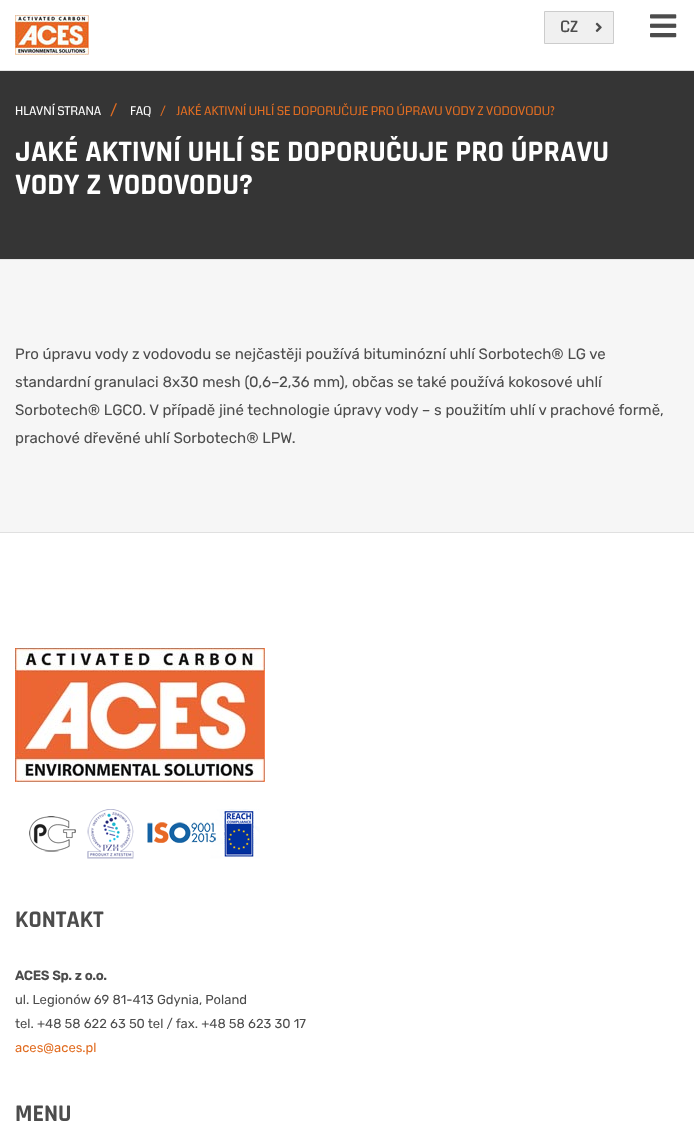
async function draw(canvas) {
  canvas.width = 694;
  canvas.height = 1122;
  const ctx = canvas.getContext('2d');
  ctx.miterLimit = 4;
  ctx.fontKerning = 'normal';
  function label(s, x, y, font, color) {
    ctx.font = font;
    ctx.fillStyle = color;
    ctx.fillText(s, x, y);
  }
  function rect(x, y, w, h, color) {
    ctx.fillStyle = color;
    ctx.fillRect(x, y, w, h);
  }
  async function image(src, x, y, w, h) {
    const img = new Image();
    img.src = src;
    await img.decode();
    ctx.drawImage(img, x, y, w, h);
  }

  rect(0, 0, 694, 1122, '#f6f6f6');
  rect(0, 0, 694, 70, '#fff');
  rect(0, 70, 694, 1, '#e4e4e4');
  await image('assets/img1.png', 15, 15, 74, 40);
  await image('assets/img2.png', 650, 14, 27, 24);
  ctx.fillStyle = '#f0f0f0';
  ctx.beginPath();
  ctx.rect(544.5, 11.5, 69, 32);
  ctx.fill();
  ctx.strokeStyle = '#ccc';
  ctx.stroke();
  label('CZ', 560, 32, 'bold 15px Coda', '#4c4c4c');
  await image('assets/img3.png', 595, 22, 7, 10);
  rect(0, 71, 694, 188, '#353535');
  rect(0, 259, 694, 1, '#e6e6e6');
  label('HLAVNÍ STRANA', 15, 115, '12px Coda', '#fff');
  label('/', 110, 115, '15px Rubik', '#e16d22');
  label('FAQ', 130, 115, '12px Coda', '#fff');
  label('/', 160, 115, '12px Rubik', '#e16d22');
  label('JAKÉ AKTIVNÍ UHLÍ SE DOPORUČUJE PRO ÚPRAVU VODY Z VODOVODU?', 176, 115, '12px Coda', '#e16d22');
  label('JAKÉ AKTIVNÍ UHLÍ SE DOPORUČUJE PRO ÚPRAVU', 15, 161, 'bold 30px Rajdhani', '#fff');
  label('VODY Z VODOVODU?', 15, 194, 'bold 30px Rajdhani', '#fff');
  label('Pro úpravu vody z vodovodu se nejčastěji používá bituminózní uhlí Sorbotech® LG ve', 15, 359, '15px Rubik', '#4c4c4c');
  label('standardní granulaci 8x30 mesh (0,6–2,36 mm), občas se také používá kokosové uhlí', 15, 387, '15px Rubik', '#4c4c4c');
  label('Sorbotech® LGCO. V případě jiné technologie úpravy vody – s použitím uhlí v prachové formě,', 15, 415, '15px Rubik', '#4c4c4c');
  label('prachové dřevěné uhlí Sorbotech® LPW.', 15, 443, '15px Rubik', '#4c4c4c');
  rect(0, 533, 694, 589, '#fff');
  rect(0, 532, 694, 1, '#e0e0e0');
  await image('assets/img4.png', 15, 648, 250, 134);
  await image('assets/img5.png', 29, 809, 231, 50);
  label('KONTAKT', 15, 927, 'bold 24px Rajdhani', '#4c4c4c');
  label('ACES Sp. z o.o.', 15, 980, 'bold 13px Rubik', '#4c4c4c');
  label('ul. Legionów 69 81-413 Gdynia, Poland', 15, 1004, '13px Rubik', '#4c4c4c');
  label('tel. +48 58 622 63 50 tel / fax. +48 58 623 30 17', 15, 1028, '13px Rubik', '#4c4c4c');
  label('aces@aces.pl', 15, 1052, '13px Rubik', '#e16d22');
  label('MENU', 15, 1121, 'bold 24px Rajdhani', '#4c4c4c');
}

draw(document.querySelector('canvas'));
